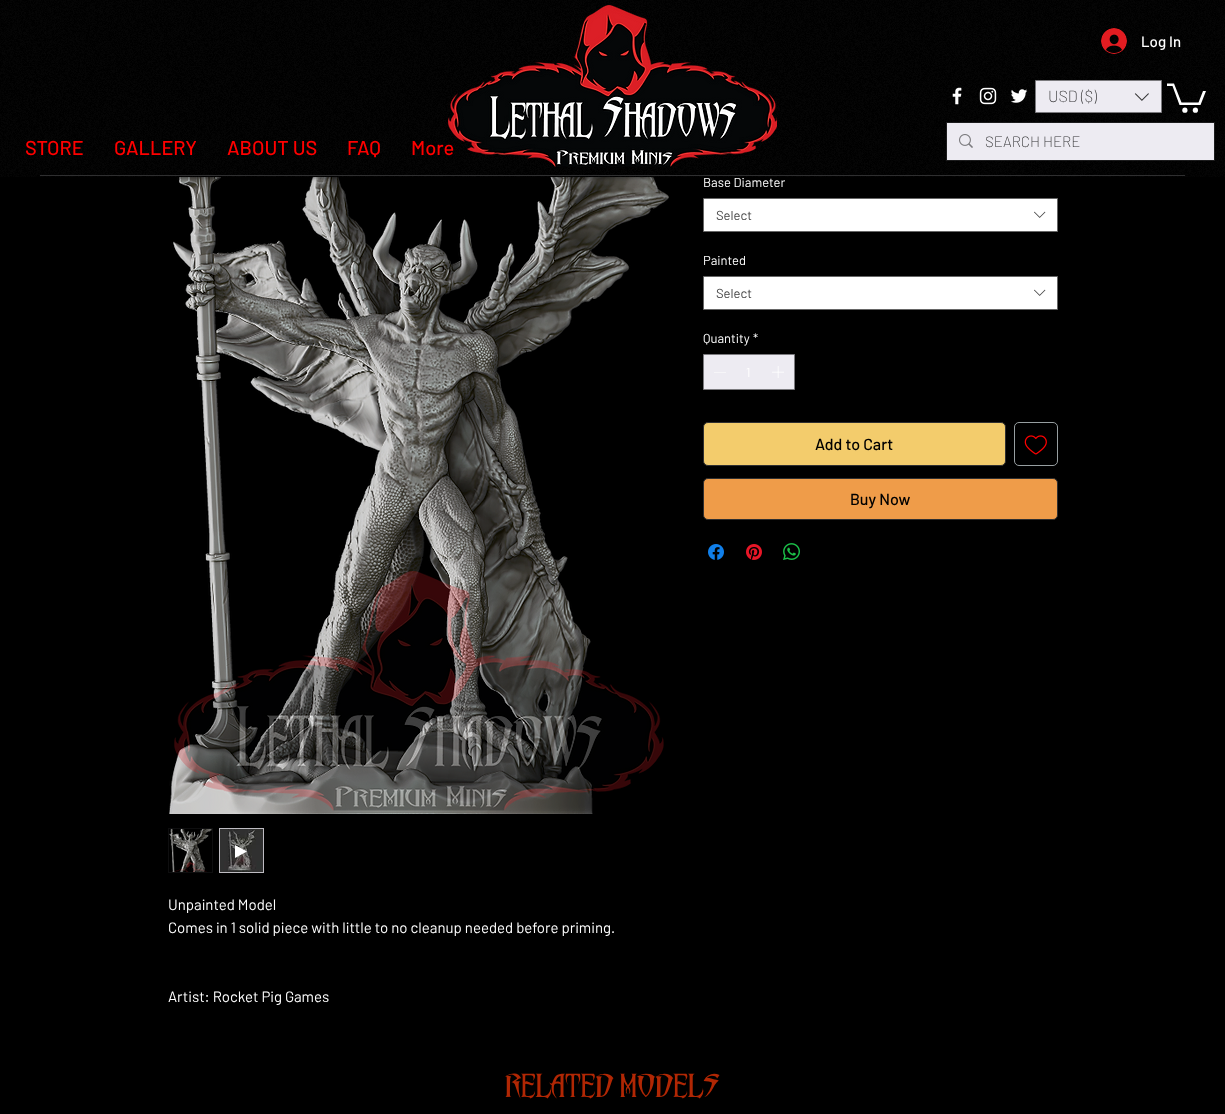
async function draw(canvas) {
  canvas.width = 1225;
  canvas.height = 1114;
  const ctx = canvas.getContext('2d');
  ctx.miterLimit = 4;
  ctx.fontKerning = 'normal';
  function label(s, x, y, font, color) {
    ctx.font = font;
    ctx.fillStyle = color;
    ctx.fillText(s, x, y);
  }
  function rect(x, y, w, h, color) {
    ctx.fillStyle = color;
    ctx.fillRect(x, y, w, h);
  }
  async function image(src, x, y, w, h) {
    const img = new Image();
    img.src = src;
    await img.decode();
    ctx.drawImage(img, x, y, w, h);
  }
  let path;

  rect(0, 0, 1225, 1114, '#000');
  await image('assets/img15.png', 169, 177, 500, 637);
  ctx.fillStyle = '#000000b3';
  ctx.filter = 'blur(2.5px)';
  ctx.beginPath();
  ctx.rect(0, 0, 1225, 177);
  ctx.fill();
  ctx.filter = 'none';
  await image('assets/img1.png', 0, 0, 1225, 177);
  label('STORE', 25, 155, '500 20px Barlow', '#f00');
  label('GALLERY', 114, 155, '500 20px Barlow', '#f00');
  label('ABOUT US', 227, 155, '500 20px Barlow', '#f00');
  label('FAQ', 347, 155, '500 20px Barlow', '#f00');
  label('More', 411, 155, '500 20px Barlow', '#f00');
  await image('assets/img2.png', 448, 5, 329, 162);
  await image('assets/img3.png', 1101, 28, 26, 26);
  label('Log In', 1141, 47, '500 15px Barlow', '#fff');
  await image('assets/img4.png', 952, 87, 10, 18);
  await image('assets/img5.png', 979, 87, 18, 18);
  await image('assets/img6.png', 1011, 89, 17, 14);
  ctx.fillStyle = '#edebf2';
  ctx.beginPath();
  ctx.rect(1035.5, 80.5, 126, 32);
  ctx.fill();
  ctx.strokeStyle = '#7b7a7e';
  ctx.stroke();
  label('USD ($)', 1048, 102, '200 16px Barlow', '#2f2f30');
  await image('assets/img7.png', 1134, 93, 15, 8);
  ctx.fillStyle = '#fff';
  path = new Path2D('M1206 91L1200.5 105H1179.5L1172.5 86H1167V83.5H1174L1181.5 102.5H1198.5L1203 91');
  ctx.fill(path);
  ctx.beginPath();
  ctx.arc(1195.4, 110.2, 2.6, 0, 2 * Math.PI);
  ctx.fill();
  ctx.beginPath();
  ctx.arc(1184.9, 110.2, 2.6, 0, 2 * Math.PI);
  ctx.fill();
  ctx.strokeStyle = '#2f2f3099';
  ctx.strokeRect(946.5, 122.5, 268, 38);
  rect(947, 123, 267, 37, '#edebf2');
  await image('assets/img8.png', 959, 134, 14, 14);
  label('SEARCH HERE', 985, 147, '200 15px Barlow', '#2f2f30');
  rect(40, 175, 1145, 1, '#2f2f30');
  label('Base Diameter', 703, 187, '13px Barlow', '#fff');
  ctx.beginPath();
  ctx.rect(703.5, 198.5, 354, 33);
  ctx.fill();
  ctx.strokeStyle = '#666';
  ctx.stroke();
  label('Select', 716, 220, '13px Barlow', '#444');
  await image('assets/img9.png', 1034, 211, 12, 7);
  label('Painted', 703, 265, '13px Barlow', '#fff');
  ctx.beginPath();
  ctx.rect(703.5, 276.5, 354, 33);
  ctx.fill();
  ctx.stroke();
  label('Select', 716, 298, '13px Barlow', '#444');
  await image('assets/img9.png', 1034, 289, 12, 7);
  label('Quantity', 703, 343, '13px Barlow', '#fff');
  label('*', 753, 343, '13px Barlow', '#fff');
  ctx.fillStyle = '#edebf2';
  ctx.beginPath();
  ctx.rect(703.5, 354.5, 91, 35);
  ctx.fill();
  ctx.strokeStyle = '#7b7a7e';
  ctx.stroke();
  ctx.fillStyle = '#fff';
  path = new Path2D('M726 372V372.5H714V372Z');
  ctx.fill(path, 'evenodd');
  label('1', 746, 377, '13px Barlow', '#fff');
  await image('assets/img10.png', 772, 366, 12, 12);
  ctx.fillStyle = '#f3cc6c';
  ctx.beginPath();
  ctx.roundRect(703.5, 422.5, 302, 43, 4.5);
  ctx.fill();
  ctx.strokeStyle = '#2f2f30';
  ctx.stroke();
  label('Add to Cart', 815, 450, '500 16px Barlow', '#000');
  ctx.beginPath();
  ctx.roundRect(1014.5, 422.5, 43, 43, 4.5);
  ctx.strokeStyle = '#979ea0';
  ctx.stroke();
  await image('assets/img11.png', 1024, 435, 23, 20);
  ctx.fillStyle = '#ef9c49';
  ctx.beginPath();
  ctx.roundRect(703.5, 478.5, 354, 41, 4.5);
  ctx.fill();
  ctx.strokeStyle = '#2f2f30';
  ctx.stroke();
  label('Buy Now', 850, 505, '500 16px Barlow', '#000');
  await image('assets/img12.png', 708, 544, 16, 16);
  await image('assets/img13.png', 746, 544, 16, 16);
  await image('assets/img14.png', 783, 543, 17, 17);
  ctx.strokeStyle = '#0e0e0f';
  ctx.strokeRect(168.5, 828.5, 44, 44);
  await image('assets/img16.png', 169, 829, 43, 43);
  ctx.strokeStyle = '#bebcc2';
  ctx.strokeRect(219.5, 828.5, 44, 44);
  await image('assets/img17.png', 220, 829, 43, 43);
  ctx.fillStyle = '#fff';
  path = new Path2D('M235 845V858L247 851.5Z');
  ctx.fill(path);
  label('Unpainted Model', 168, 910, '15px Barlow', '#fff');
  label('Comes in 1 solid piece with little to no cleanup needed before priming.', 168, 933, '15px Barlow', '#fff');
  label('Artist: Rocket Pig Games', 168, 1002, '15px Barlow', '#fff');
  label('RELATED', 505, 1097, '28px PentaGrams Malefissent', '#b12704');
  label('MODELS', 620, 1097, '28px PentaGrams Malefissent', '#b12704');
}

draw(document.querySelector('canvas'));
